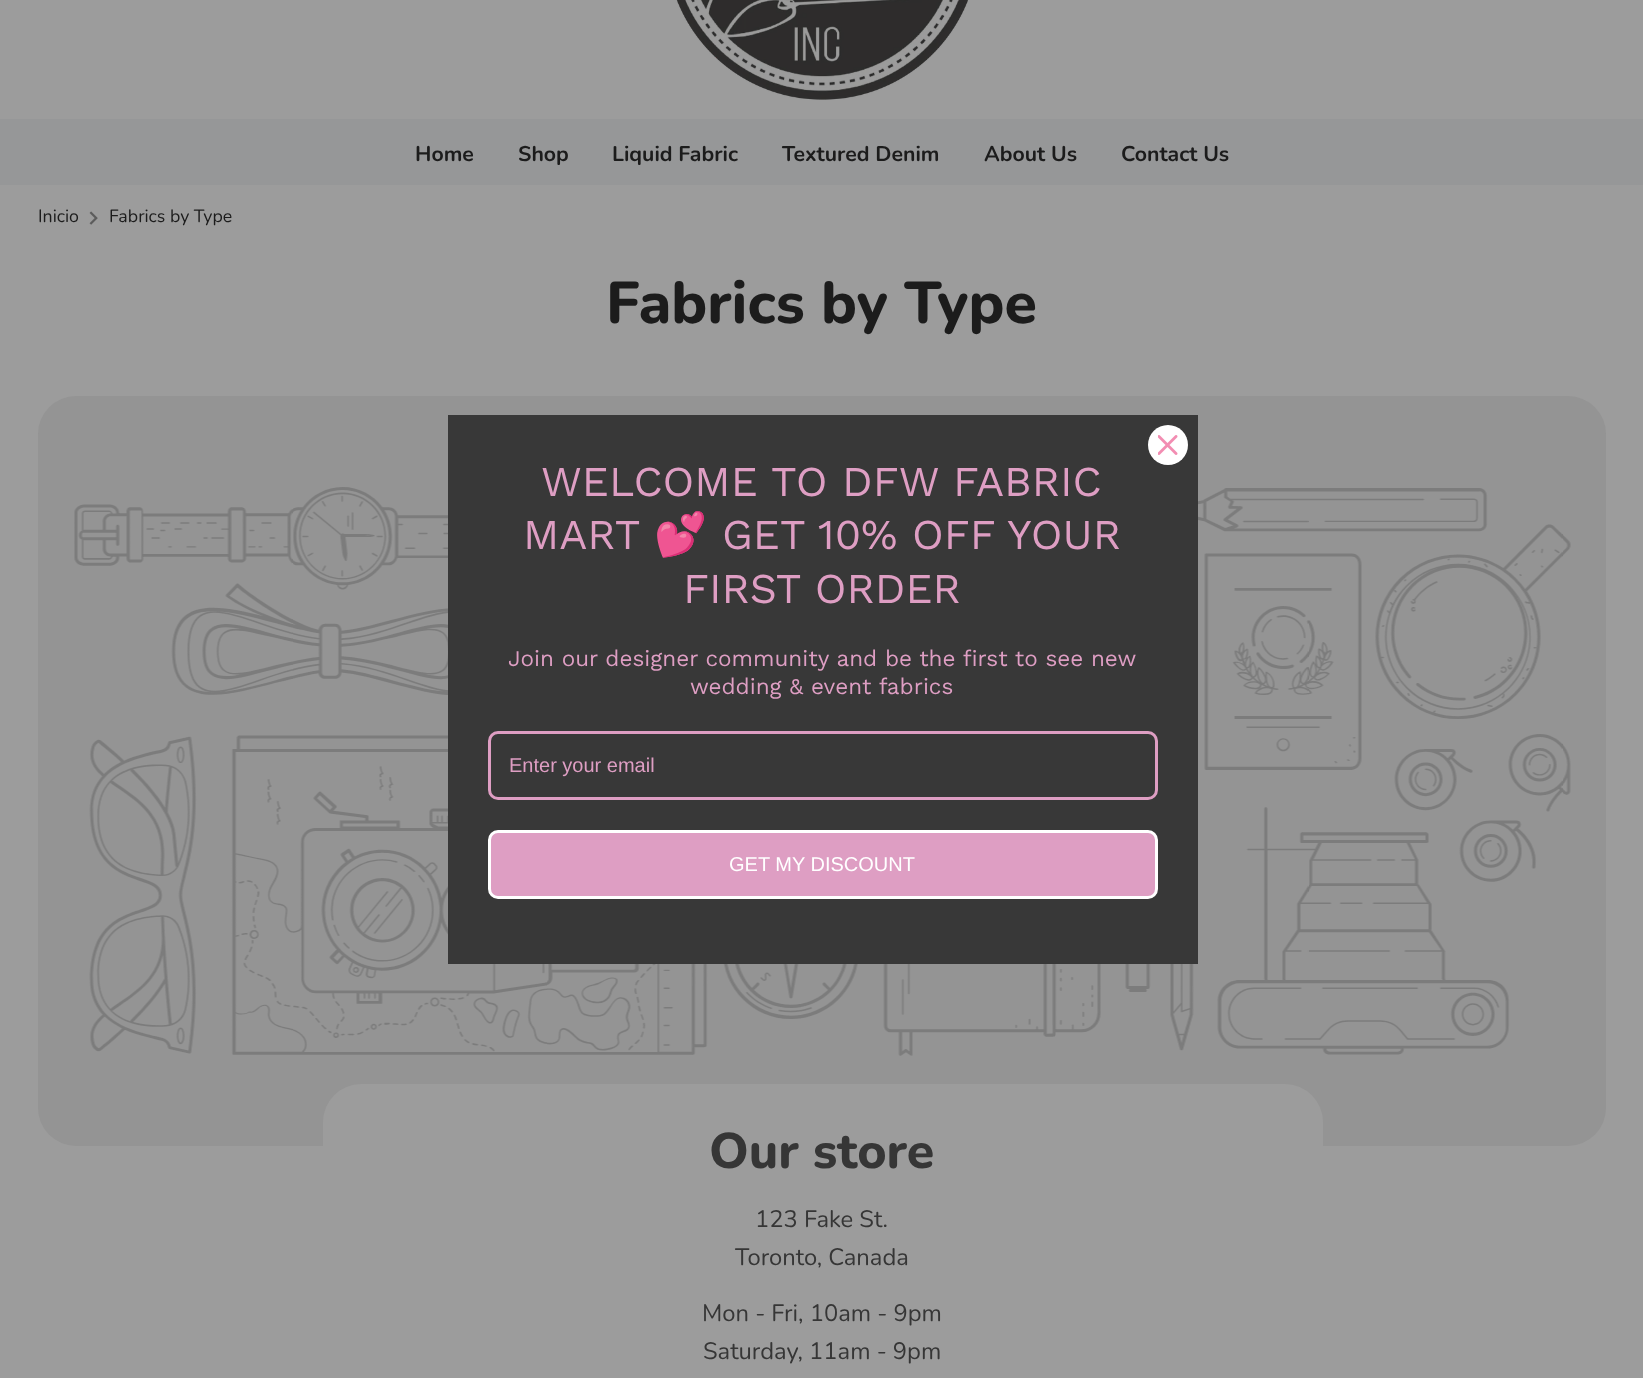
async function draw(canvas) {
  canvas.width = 1643;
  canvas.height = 1378;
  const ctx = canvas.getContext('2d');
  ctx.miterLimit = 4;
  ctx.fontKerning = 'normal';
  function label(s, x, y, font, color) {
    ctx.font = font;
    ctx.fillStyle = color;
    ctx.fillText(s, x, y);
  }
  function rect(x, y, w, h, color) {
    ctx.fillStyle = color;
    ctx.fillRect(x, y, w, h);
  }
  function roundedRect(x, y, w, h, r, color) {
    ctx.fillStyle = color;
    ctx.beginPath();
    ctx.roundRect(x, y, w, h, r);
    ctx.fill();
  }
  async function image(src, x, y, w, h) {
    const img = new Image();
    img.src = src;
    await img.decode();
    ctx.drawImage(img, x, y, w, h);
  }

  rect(0, 0, 1643, 1378, '#9c9c9c');
  await image('assets/img1.png', 676, 0, 292, 100);
  rect(0, 119, 1643, 66, '#969798');
  label('Home', 415, 161, 'bold 21.25px Nunito', '#1c1c1c');
  label('Shop', 518, 161, 'bold 21.25px Nunito', '#1c1c1c');
  label('Liquid Fabric', 612, 161, 'bold 21.25px Nunito', '#1c1c1c');
  label('Textured Denim', 782, 161, 'bold 21.25px Nunito', '#1c1c1c');
  label('About Us', 984, 161, 'bold 21.25px Nunito', '#1c1c1c');
  label('Contact Us', 1121, 161, 'bold 21.25px Nunito', '#1c1c1c');
  label('Inicio', 38, 222, '17.75px Nunito', '#1c1c1c');
  await image('assets/img2.png', 89, 211, 9, 14);
  label('Fabrics by Type', 109, 222, '17.75px Nunito', '#1c1c1c');
  label('Fabrics by Type', 606, 323, '800 59px Nunito', '#1c1c1c');
  roundedRect(38, 396, 1568, 750, 38, '#949494');
  await image('assets/img3.png', 74, 487, 1497, 569);
  roundedRect(323, 1084, 1000, 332, 38, '#9c9c9c');
  label('Our store', 709, 1168, '800 50px Nunito', '#363636');
  label('123 Fake St.', 755, 1227, '23.75px Nunito', '#363636');
  label('Toronto, Canada', 735, 1265, '23.75px Nunito', '#363636');
  label('Mon - Fri, 10am - 9pm', 702, 1321, '23.75px Nunito', '#363636');
  label('Saturday, 11am - 9pm', 703, 1359, '23.75px Nunito', '#363636');
  rect(448, 415, 750, 549, '#383838');
  ctx.fillStyle = '#fff';
  ctx.beginPath();
  ctx.arc(1168, 445, 20, 0, 2 * Math.PI);
  ctx.fill();
  await image('assets/img4.png', 1158, 435, 20, 20);
  label('WELCOME TO DFW FABRIC', 541, 496, '42.5px Work Sans', '#de9ec3');
  label('MART', 523, 549, '42.5px Work Sans', '#de9ec3');
  label('💕', 654, 549, '42.5px Noto Color Emoji', '#de9ec3');
  label('GET 10% OFF YOUR', 722, 549, '42.5px Work Sans', '#de9ec3');
  label('FIRST ORDER', 683, 603, '42.5px Work Sans', '#de9ec3');
  label('Join our designer community and be the first to see new', 508, 666, '22.5px Work Sans', '#de9ec3');
  label('wedding & event fabrics', 690, 694, '22.5px Work Sans', '#de9ec3');
  ctx.beginPath();
  ctx.roundRect(489.5, 732.5, 667, 66, 8.5);
  ctx.strokeStyle = '#de9ec3';
  ctx.lineWidth = 3;
  ctx.stroke();
  label('Enter your email', 509, 772, '20px Liberation Sans', '#de9ec3');
  ctx.beginPath();
  ctx.roundRect(489.5, 831.5, 667, 66, 8.5);
  ctx.fill();
  ctx.strokeStyle = '#fff';
  ctx.stroke();
  label('GET MY DISCOUNT', 729, 871, '20px Liberation Sans', '#fff');
}

draw(document.querySelector('canvas'));
